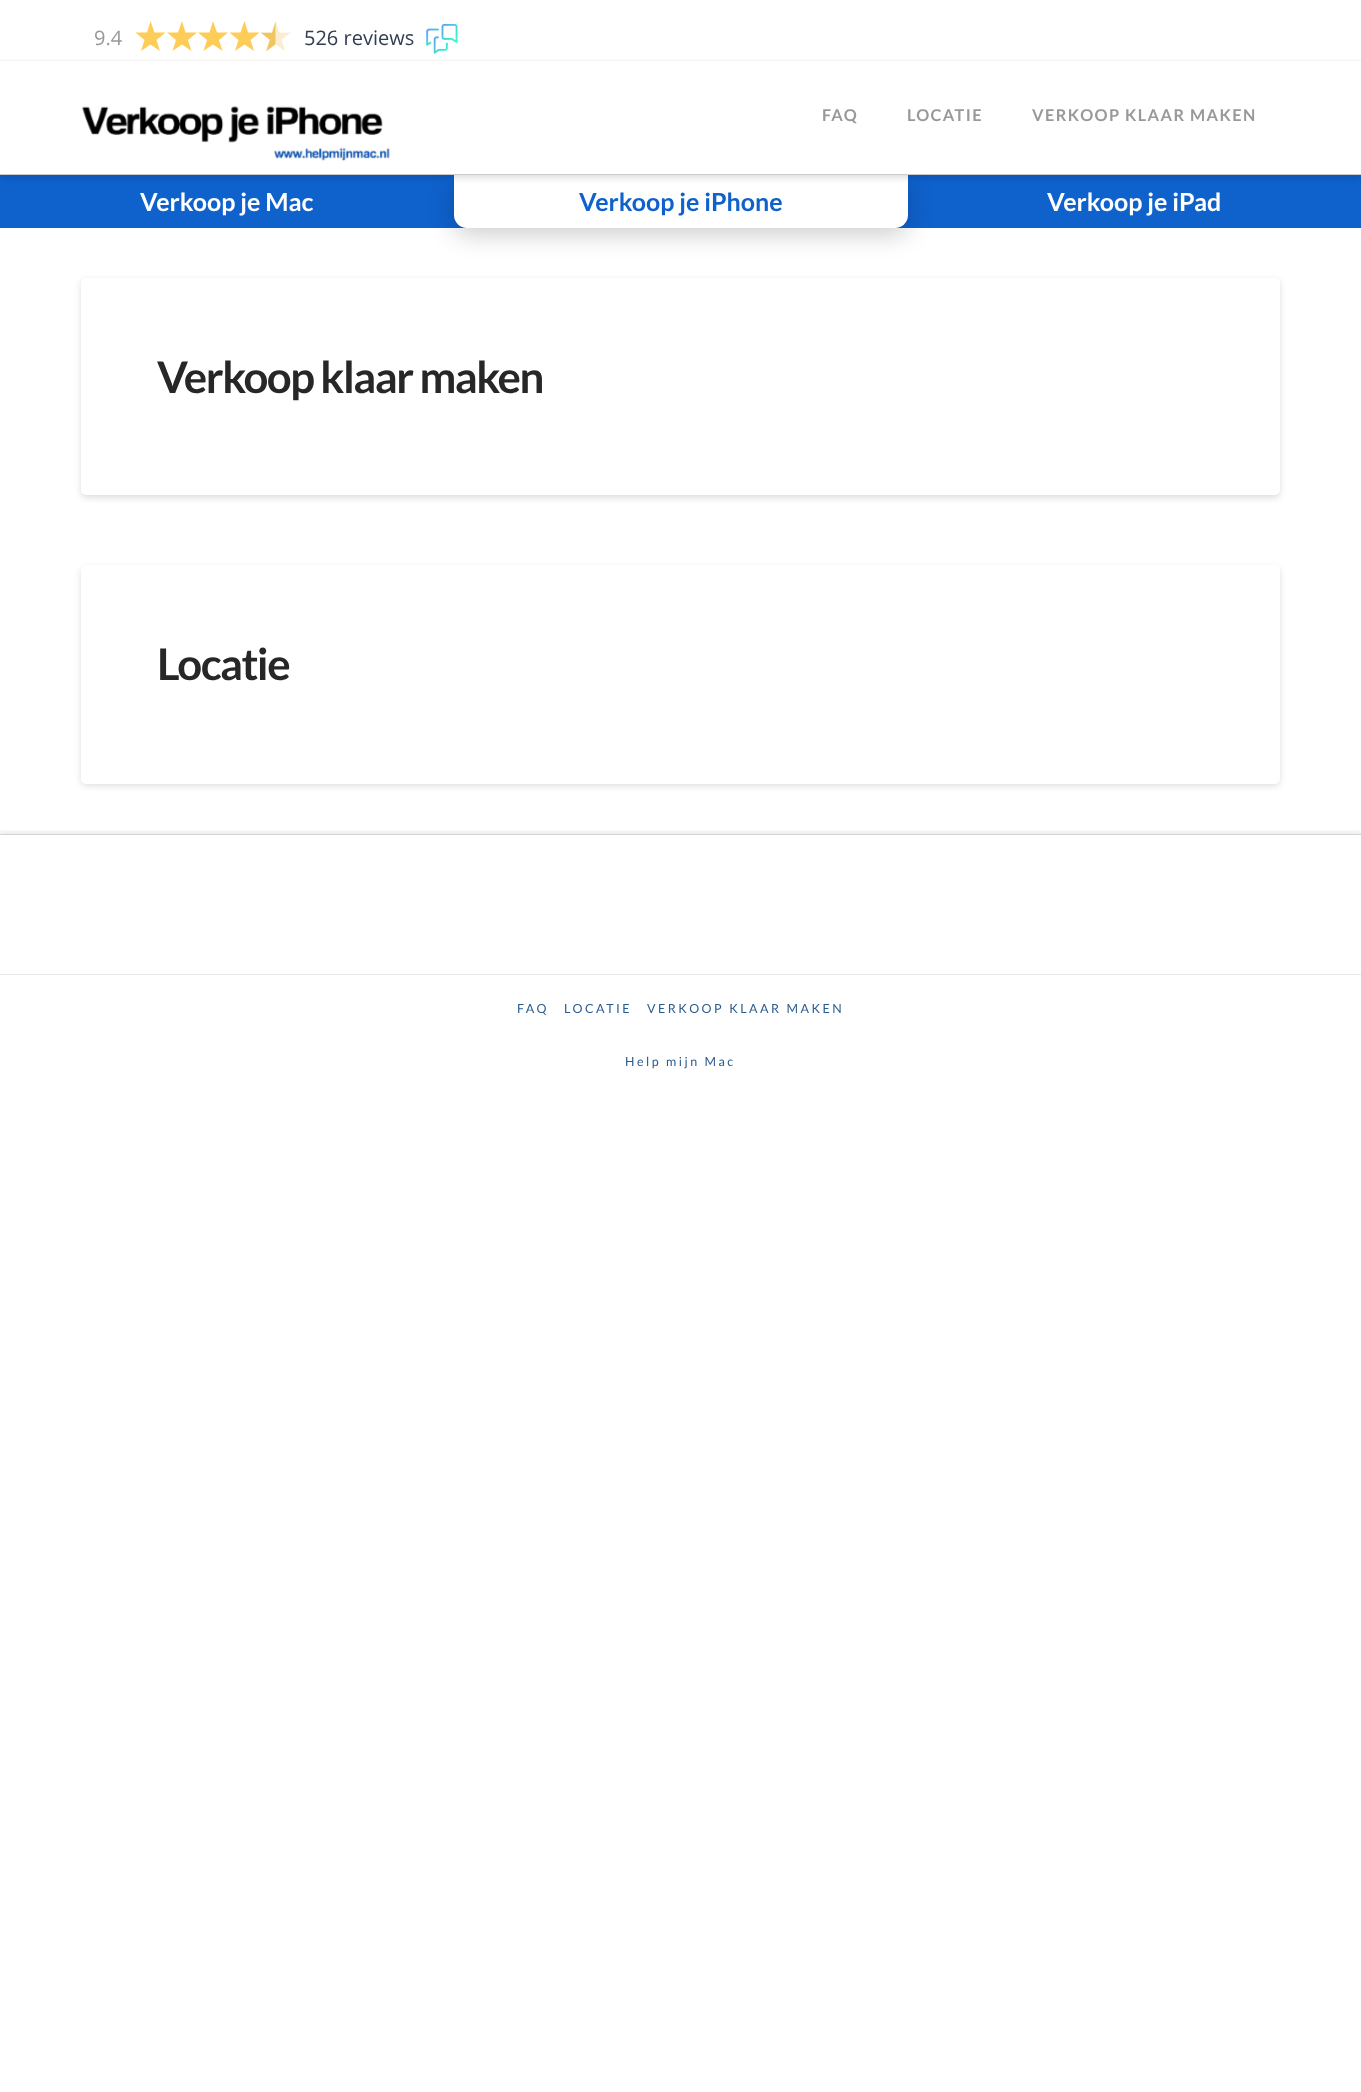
async function draw(canvas) {
  canvas.width = 1361;
  canvas.height = 2092;
  const ctx = canvas.getContext('2d');
  ctx.miterLimit = 4;
  ctx.fontKerning = 'normal';
  function label(s, x, y, font, color) {
    ctx.font = font;
    ctx.fillStyle = color;
    ctx.fillText(s, x, y);
  }
  function rect(x, y, w, h, color) {
    ctx.fillStyle = color;
    ctx.fillRect(x, y, w, h);
  }
  function roundedRect(x, y, w, h, r, color) {
    ctx.fillStyle = color;
    ctx.beginPath();
    ctx.roundRect(x, y, w, h, r);
    ctx.fill();
  }
  async function image(src, x, y, w, h) {
    const img = new Image();
    img.src = src;
    await img.decode();
    ctx.drawImage(img, x, y, w, h);
  }
  let path;

  rect(0, 0, 1361, 2092, '#fff');
  rect(0, 175, 1361, 53, '#0f61cc');
  ctx.fillStyle = '#00000030';
  ctx.filter = 'blur(12.5px)';
  ctx.beginPath();
  ctx.roundRect(454, 183, 454, 52, 13);
  ctx.fill();
  ctx.filter = 'none';
  ctx.fillStyle = '#fff';
  ctx.beginPath();
  ctx.roundRect(454, 175, 454, 53, [0, 0, 13, 13]);
  ctx.fill();
  ctx.fillStyle = '#00000021';
  ctx.filter = 'blur(3px)';
  ctx.beginPath();
  ctx.rect(0, 64, 1361, 114);
  ctx.fill();
  ctx.filter = 'none';
  rect(0, 60, 1361, 1, '#f2f2f2');
  label('9.4', 94, 45, '20px Open Sans', '#999');
  ctx.fillStyle = '#fecd58';
  path = new Path2D('M160 51L156.5 40L165.5 32.5H154.5L150.5 21L147 32.5H135.5L144.5 40L141 51L150.5 44.5ZM191.5 51L188 40L197 32.5H185.5L182 21L178 32.5H167L176 40L172.5 51L182 44.5Z');
  ctx.fill(path);
  path = new Path2D('M222.5 51L219 40L228 32.5H217L213 21L209.5 32.5H198L207 40L203.5 51L213 44.5ZM254 51L250.5 40L259.5 32.5H248L244.5 21L240.5 32.5H229.5L238.5 40L235 51L244.5 44.5Z');
  ctx.fill(path);
  await image('assets/img1.png', 260, 21, 31, 30);
  label('526 reviews', 304, 45, '20px Open Sans', '#303c50');
  await image('assets/img2.png', 426, 23, 32, 31);
  rect(0, 61, 1361, 113, '#fff');
  rect(0, 174, 1361, 1, '#ccc');
  await image('assets/img3.png', 82, 106, 308, 55);
  ctx.letterSpacing = '1.4px';
  label('FAQ', 822, 121, 'bold 16.25px Lato', '#999');
  label('LOCATIE', 907, 121, 'bold 16.25px Lato', '#999');
  label('VERKOOP KLAAR MAKEN', 1032, 121, 'bold 16.25px Lato', '#999');
  ctx.letterSpacing = '0px';
  label('Verkoop je Mac', 140, 211, 'bold 25px Lato', '#fff');
  label('Verkoop je iPhone', 579, 211, 'bold 25px Lato', '#0f61cc');
  label('Verkoop je iPad', 1047, 211, 'bold 25px Lato', '#fff');
  ctx.fillStyle = '#00000021';
  ctx.filter = 'blur(3px)';
  ctx.beginPath();
  ctx.roundRect(81, 280, 1199, 218, 5);
  ctx.fill();
  ctx.filter = 'none';
  roundedRect(81, 278, 1199, 217, 5, '#fff');
  ctx.letterSpacing = '-1.5px';
  label('Verkoop klaar maken', 157, 393, 'bold 43.75px Lato', '#272727');
  ctx.fillStyle = '#00000021';
  ctx.filter = 'blur(3px)';
  ctx.beginPath();
  ctx.roundRect(81, 568, 1199, 218, 5);
  ctx.fill();
  ctx.filter = 'none';
  roundedRect(81, 565, 1199, 219, 5, '#fff');
  label('Locatie', 157, 680, 'bold 43.75px Lato', '#272727');
  ctx.save();
  ctx.beginPath();
  ctx.rect(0, 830, 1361, 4);
  ctx.clip();
  ctx.fillStyle = '#00000012';
  ctx.filter = 'blur(2px)';
  ctx.beginPath();
  ctx.rect(0, 831, 1361, 140);
  ctx.fill();
  ctx.filter = 'none';
  ctx.restore();
  rect(0, 834, 1361, 1, '#d4d4d4');
  rect(0, 974, 1361, 1, '#e8e8e8');
  ctx.letterSpacing = '2.5px';
  label('FAQ', 517, 1013, '12.5px Lato', '#2a5c8e');
  label('LOCATIE', 564, 1013, '12.5px Lato', '#2a5c8e');
  label('VERKOOP KLAAR MAKEN', 647, 1013, '12.5px Lato', '#2a5c8e');
  label('Help mijn Mac', 625, 1066, '12.5px Lato', '#2a5c8e');
}

draw(document.querySelector('canvas'));
